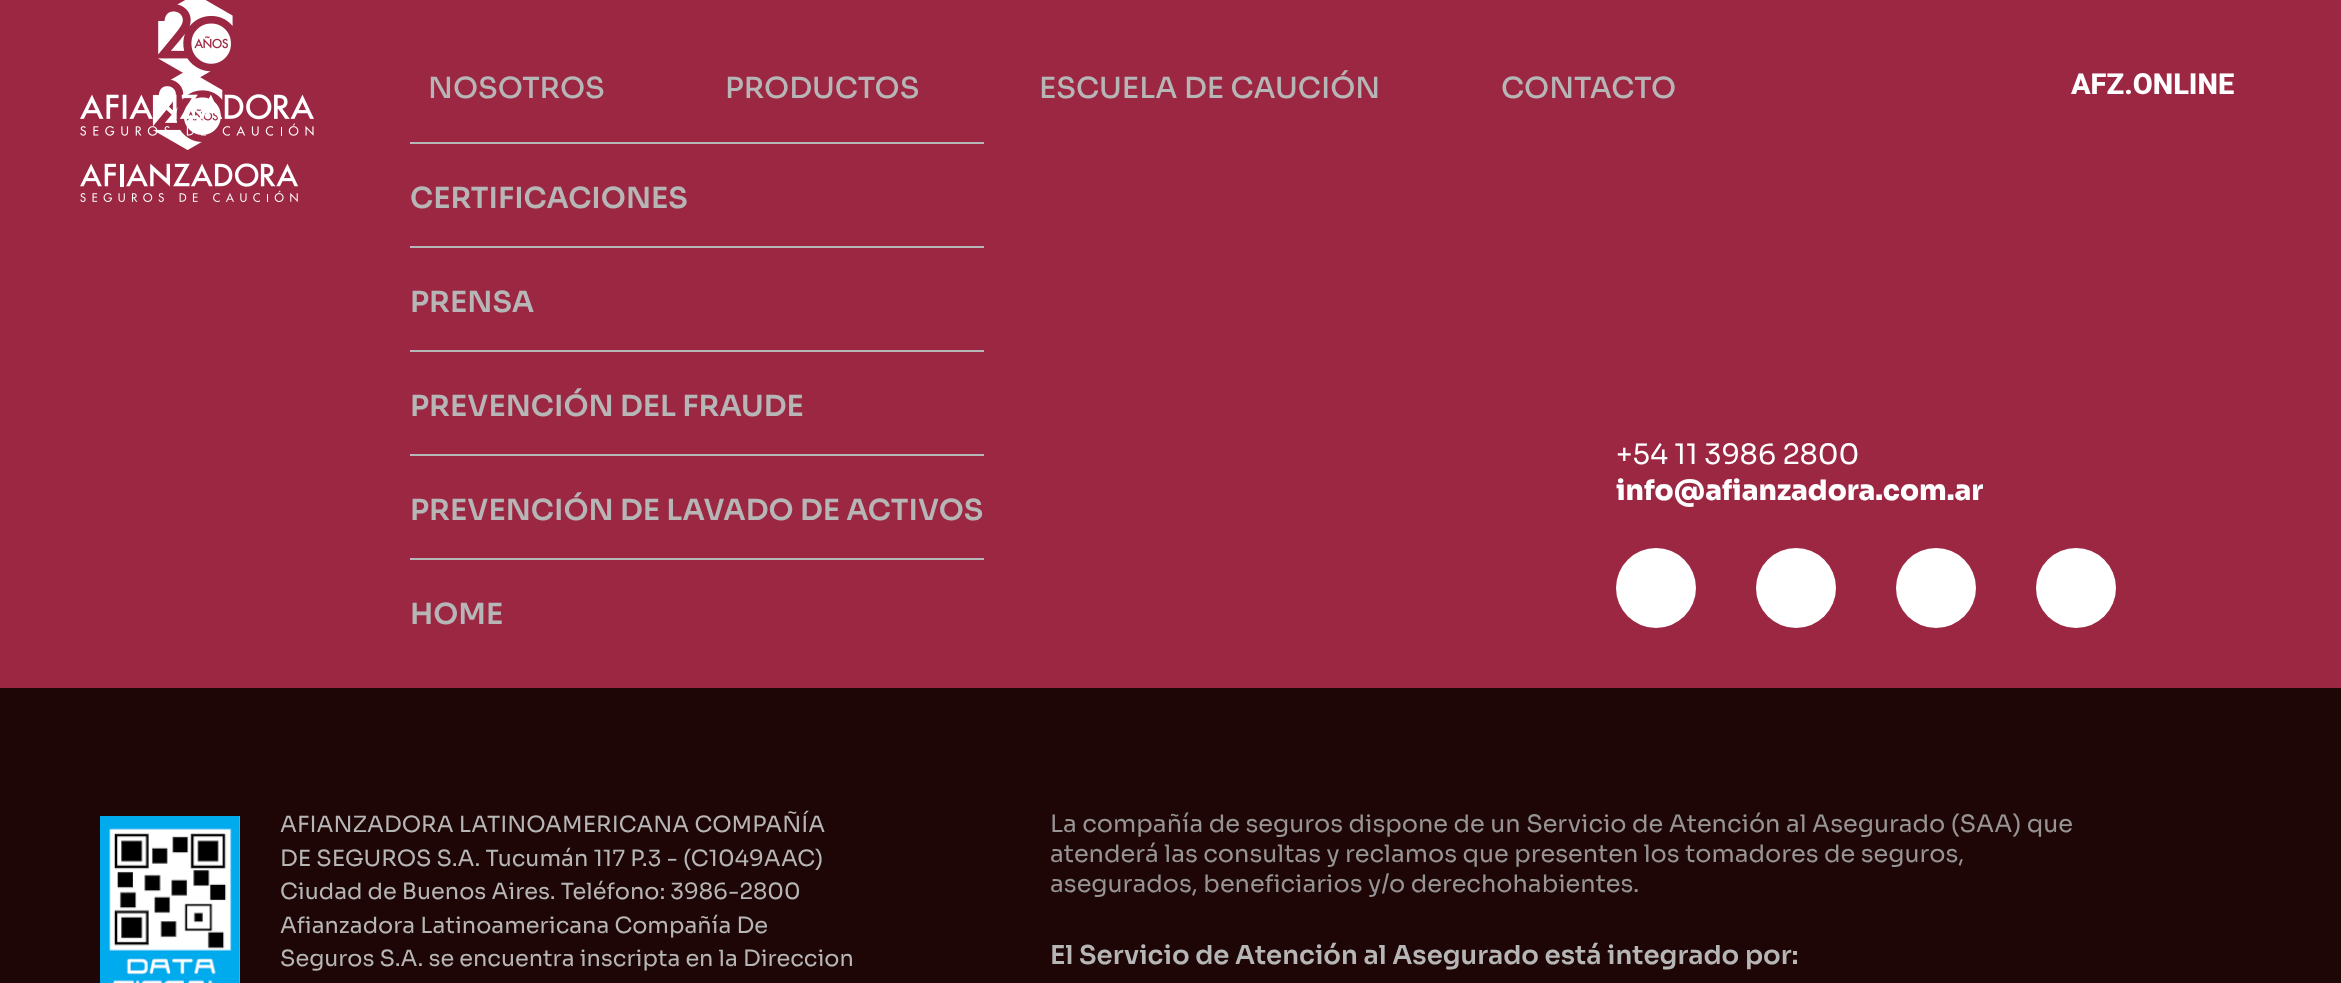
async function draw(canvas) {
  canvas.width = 2341;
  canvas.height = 983;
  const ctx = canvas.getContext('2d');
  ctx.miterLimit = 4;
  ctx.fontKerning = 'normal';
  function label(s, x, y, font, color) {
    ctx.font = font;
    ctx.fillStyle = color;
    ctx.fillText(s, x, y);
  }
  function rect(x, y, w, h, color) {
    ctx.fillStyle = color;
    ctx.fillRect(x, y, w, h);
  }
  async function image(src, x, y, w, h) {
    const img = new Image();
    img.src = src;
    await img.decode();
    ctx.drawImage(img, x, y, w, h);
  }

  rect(0, 0, 2341, 983, '#9b2743');
  await image('assets/img2.png', 80, 72, 218, 130);
  await image('assets/img1.png', 80, 0, 234, 136);
  label('NOSOTROS', 428, 98, '500 29px Sora', '#b7b6b6');
  label('PRODUCTOS', 725, 98, '500 29px Sora', '#b7b6b6');
  label('ESCUELA DE CAUCIÓN', 1039, 98, '500 29px Sora', '#b7b6b6');
  label('CONTACTO', 1501, 98, '500 29px Sora', '#b7b6b6');
  label('AFZ.ONLINE', 2071, 94, '800 29px Roboto', '#fff');
  rect(410, 142, 574, 2, '#b7b6b6');
  rect(410, 246, 574, 2, '#b7b6b6');
  label('CERTIFICACIONES', 410, 208, '600 29px Sora', '#b7b6b6');
  rect(410, 350, 574, 2, '#b7b6b6');
  label('PRENSA', 410, 312, '600 29px Sora', '#b7b6b6');
  rect(410, 454, 574, 2, '#b7b6b6');
  label('PREVENCIÓN DEL FRAUDE', 410, 416, '600 29px Sora', '#b7b6b6');
  rect(410, 558, 574, 2, '#b7b6b6');
  label('PREVENCIÓN DE LAVADO DE ACTIVOS', 410, 520, '600 29px Sora', '#b7b6b6');
  label('HOME', 410, 624, '600 29px Sora', '#b7b6b6');
  label('+54 11 3986 2800', 1616, 464, '28px Sora', '#fff');
  label('info@afianzadora.com.ar', 1616, 500, '800 28px Sora', '#fff');
  ctx.beginPath();
  ctx.arc(1656, 588, 40, 0, 2 * Math.PI);
  ctx.fill();
  ctx.beginPath();
  ctx.arc(1796, 588, 40, 0, 2 * Math.PI);
  ctx.fill();
  ctx.beginPath();
  ctx.arc(1936, 588, 40, 0, 2 * Math.PI);
  ctx.fill();
  ctx.beginPath();
  ctx.arc(2076, 588, 40, 0, 2 * Math.PI);
  ctx.fill();
  rect(0, 688, 2341, 295, '#1e0606');
  await image('assets/img3.png', 100, 816, 140, 167);
  label('AFIANZADORA LATINOAMERICANA COMPAÑÍA', 280, 832, '22.4px Sora', '#b7b6b6');
  label('DE SEGUROS S.A. Tucumán 117 P.3 - (C1049AAC)', 280, 866, '22.4px Sora', '#b7b6b6');
  label('Ciudad de Buenos Aires. Teléfono: 3986-2800', 280, 899, '22.4px Sora', '#b7b6b6');
  label('Afianzadora Latinoamericana Compañía De', 280, 933, '22.4px Sora', '#b7b6b6');
  label('Seguros S.A. se encuentra inscripta en la Direccion', 280, 966, '22.4px Sora', '#b7b6b6');
  label('La compañía de seguros dispone de un Servicio de Atención al Asegurado (SAA) que', 1050, 832, '24px Sora', '#969494');
  label('atenderá las consultas y reclamos que presenten los tomadores de seguros,', 1050, 862, '24px Sora', '#969494');
  label('asegurados, beneficiarios y/o derechohabientes.', 1050, 892, '24px Sora', '#969494');
  label('El Servicio de Atención al Asegurado está integrado por:', 1050, 964, '600 26px Sora', '#b7b6b6');
}

draw(document.querySelector('canvas'));
